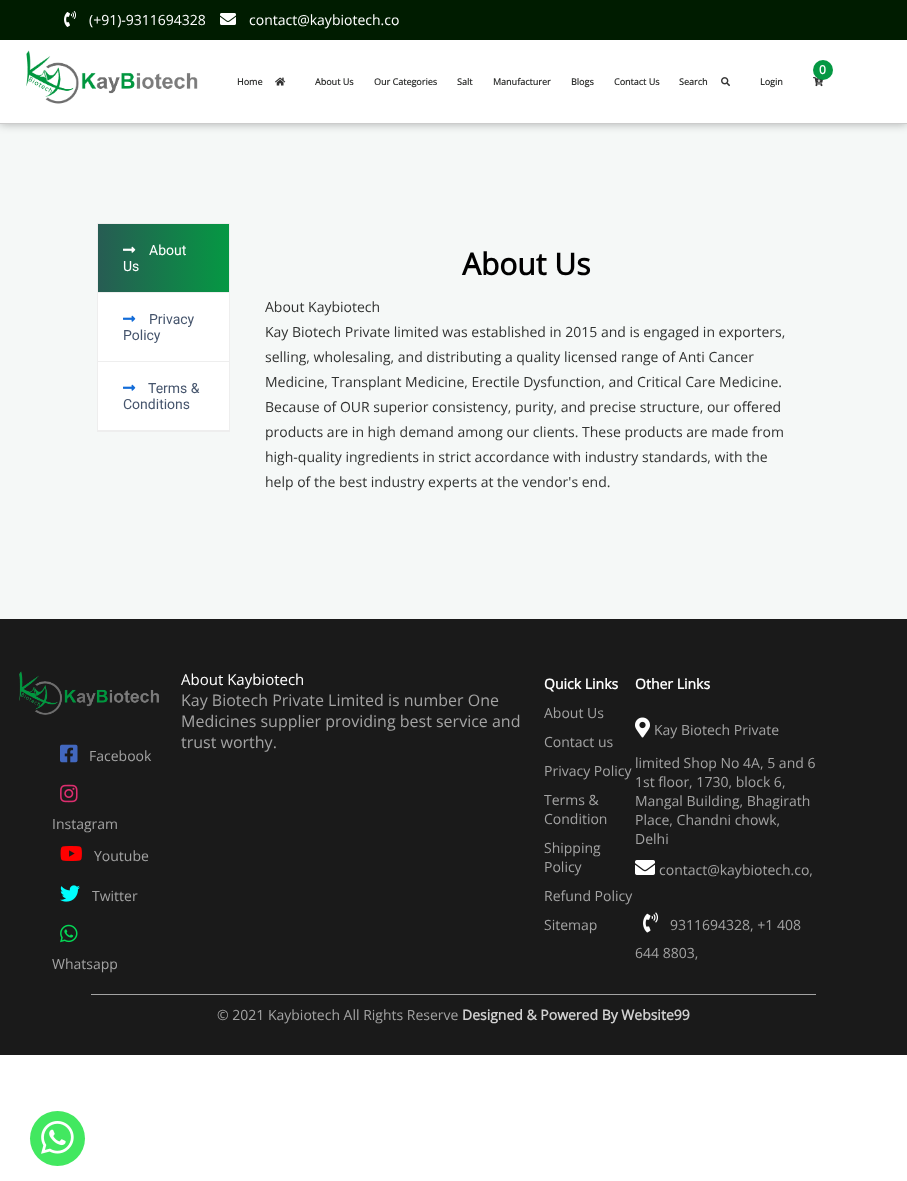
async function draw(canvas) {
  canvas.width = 907;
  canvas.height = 1181;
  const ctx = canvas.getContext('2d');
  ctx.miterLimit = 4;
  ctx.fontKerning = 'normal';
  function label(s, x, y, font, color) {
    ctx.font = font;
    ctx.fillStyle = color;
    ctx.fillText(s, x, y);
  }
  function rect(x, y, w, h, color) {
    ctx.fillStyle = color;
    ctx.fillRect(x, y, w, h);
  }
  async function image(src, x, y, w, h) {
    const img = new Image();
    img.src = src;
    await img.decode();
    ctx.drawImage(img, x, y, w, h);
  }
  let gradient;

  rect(0, 0, 907, 1181, '#fff');
  rect(0, 124, 907, 495, '#f5f8f7');
  ctx.fillStyle = '#0000004d';
  ctx.filter = 'blur(5px)';
  ctx.beginPath();
  ctx.rect(0, 0, 907, 124);
  ctx.fill();
  ctx.filter = 'none';
  rect(0, 40, 907, 83, '#fff');
  rect(0, 123, 907, 1, '#ccc');
  rect(0, 0, 907, 40, '#001c00');
  await image('assets/img1.png', 64, 11, 12, 16);
  label('(+91)-9311694328', 89, 25, '14px Open Sans', '#fff');
  await image('assets/img2.png', 220, 13, 16, 12);
  label('contact@kaybiotech.co', 249, 25, '14px Open Sans', '#fff');
  await image('assets/img3.png', 26, 50, 172, 54);
  await image('assets/img4.png', 813, 77, 11, 10);
  ctx.fillStyle = '#059843';
  ctx.beginPath();
  ctx.arc(823, 70, 10, 0, 2 * Math.PI);
  ctx.fill();
  label('0', 819, 74, 'bold 12px Open Sans', '#fff');
  label('Home', 237, 85, 'bold 9px Open Sans', '#313231');
  await image('assets/img5.png', 275, 77, 11, 9);
  label('About Us', 315, 85, 'bold 9px Open Sans', '#313231');
  label('Our Categories', 374, 85, 'bold 9px Open Sans', '#313231');
  label('Salt', 457, 85, 'bold 9px Open Sans', '#313231');
  label('Manufacturer', 493, 85, 'bold 9px Open Sans', '#313231');
  label('Blogs', 571, 85, 'bold 9px Open Sans', '#313231');
  label('Contact Us', 614, 85, 'bold 9px Open Sans', '#313231');
  label('Search', 679, 85, 'bold 9px Open Sans', '#313231');
  await image('assets/img6.png', 721, 77, 9, 10);
  label('Login', 760, 85, 'bold 9px Open Sans', '#313231');
  rect(98, 293, 131, 137, '#fff');
  ctx.strokeStyle = '#eee';
  ctx.strokeRect(97.5, 223.5, 132, 208);
  gradient = ctx.createLinearGradient(98, 258, 229, 258);
  gradient.addColorStop(0, '#275c53');
  gradient.addColorStop(1, '#059843');
  ctx.fillStyle = gradient;
  ctx.fillRect(98, 224, 131, 68);
  rect(98, 292, 131, 1, '#eee');
  await image('assets/img7.png', 123, 246, 13, 7);
  label('About', 149, 255, '14px Roboto', '#fff');
  label('Us', 123, 271, '14px Roboto', '#fff');
  rect(98, 361, 131, 1, '#eee');
  await image('assets/img8.png', 123, 315, 13, 7);
  label('Privacy', 149, 324, '14px Roboto', '#46556d');
  label('Policy', 123, 340, '14px Roboto', '#46556d');
  rect(98, 430, 131, 1, '#eee');
  await image('assets/img8.png', 123, 384, 13, 7);
  label('Terms &', 148, 393, '14px Roboto', '#46556d');
  label('Conditions', 123, 409, '14px Roboto', '#46556d');
  label('About Us', 462, 275, 'bold 30px Open Sans', '#000');
  label('About Kaybiotech', 265, 312, '14px Open Sans', '#313231');
  label('Kay Biotech Private limited was established in 2015 and is engaged in exporters,', 265, 337, '14px Open Sans', '#313231');
  label('selling, wholesaling, and distributing a quality licensed range of Anti Cancer', 265, 362, '14px Open Sans', '#313231');
  label('Medicine, Transplant Medicine, Erectile Dysfunction, and Critical Care Medicine.', 265, 387, '14px Open Sans', '#313231');
  label('Because of OUR superior consistency, purity, and precise structure, our offered', 265, 412, '14px Open Sans', '#313231');
  label('products are in high demand among our clients. These products are made from', 265, 437, '14px Open Sans', '#313231');
  label('high-quality ingredients in strict accordance with industry standards, with the', 265, 462, '14px Open Sans', '#313231');
  label('help of the best industry experts at the vendor\'s end.', 265, 487, '14px Open Sans', '#313231');
  rect(0, 619, 907, 436, '#1a1a1a');
  await image('assets/img9.png', 19, 671, 140, 44);
  await image('assets/img10.png', 60, 744, 18, 19);
  label('Facebook', 89, 761, '14px Open Sans', '#a3a3a3');
  await image('assets/img11.png', 60, 784, 18, 19);
  label('Instagram', 52, 829, '14px Open Sans', '#a3a3a3');
  await image('assets/img12.png', 60, 846, 22, 15);
  label('Youtube', 94, 861, '14px Open Sans', '#a3a3a3');
  await image('assets/img13.png', 60, 885, 20, 17);
  label('Twitter', 92, 901, '14px Open Sans', '#a3a3a3');
  await image('assets/img14.png', 60, 924, 18, 19);
  label('Whatsapp', 52, 969, '14px Open Sans', '#a3a3a3');
  label('About Kaybiotech', 181, 685, '15px Open Sans', '#fff');
  label('Kay Biotech Private Limited is number One', 181, 706, '16px Open Sans', '#a3a3a3');
  label('Medicines supplier providing best service and', 181, 727, '16px Open Sans', '#a3a3a3');
  label('trust worthy.', 181, 748, '16px Open Sans', '#a3a3a3');
  label('Quick Links', 544, 689, 'bold 14px Open Sans', '#fff');
  label('About Us', 544, 718, '14px Open Sans', '#a3a3a3');
  label('Contact us', 544, 747, '14px Open Sans', '#a3a3a3');
  label('Privacy Policy', 544, 776, '14px Open Sans', '#a3a3a3');
  label('Terms &', 544, 805, '14px Open Sans', '#a3a3a3');
  label('Condition', 544, 824, '14px Open Sans', '#a3a3a3');
  label('Shipping', 544, 853, '14px Open Sans', '#a3a3a3');
  label('Policy', 544, 872, '14px Open Sans', '#a3a3a3');
  label('Refund Policy', 544, 901, '14px Open Sans', '#a3a3a3');
  label('Sitemap', 544, 930, '14px Open Sans', '#a3a3a3');
  label('Other Links', 635, 689, 'bold 14px Open Sans', '#fff');
  await image('assets/img15.png', 635, 717, 15, 21);
  label('Kay Biotech Private', 654, 735, '14px Open Sans', '#a3a3a3');
  label('limited Shop No 4A, 5 and 6', 635, 768, '14px Open Sans', '#a3a3a3');
  label('1st floor, 1730, block 6,', 635, 787, '14px Open Sans', '#a3a3a3');
  label('Mangal Building, Bhagirath', 635, 806, '14px Open Sans', '#a3a3a3');
  label('Place, Chandni chowk,', 635, 825, '14px Open Sans', '#a3a3a3');
  label('Delhi', 635, 844, '14px Open Sans', '#a3a3a3');
  await image('assets/img16.png', 635, 860, 20, 15);
  label('contact@kaybiotech.co,', 659, 875, '14px Open Sans', '#a3a3a3');
  await image('assets/img17.png', 643, 912, 15, 21);
  label('9311694328, +1 408', 670, 930, '14px Open Sans', '#a3a3a3');
  label('644 8803,', 635, 958, '14px Open Sans', '#a3a3a3');
  rect(91, 994, 725, 1, '#a3a3a3');
  label('© 2021 Kaybiotech All Rights Reserve', 217, 1020, '14px Open Sans', '#a3a3a3');
  label('Designed & Powered By Website99', 462, 1020, 'bold 14px Open Sans', '#d1d1d1');
  ctx.fillStyle = '#42e860';
  ctx.beginPath();
  ctx.arc(57.5, 1138.5, 27.5, 0, 2 * Math.PI);
  ctx.fill();
  await image('assets/img18.png', 41, 1121, 33, 33);
}

draw(document.querySelector('canvas'));
